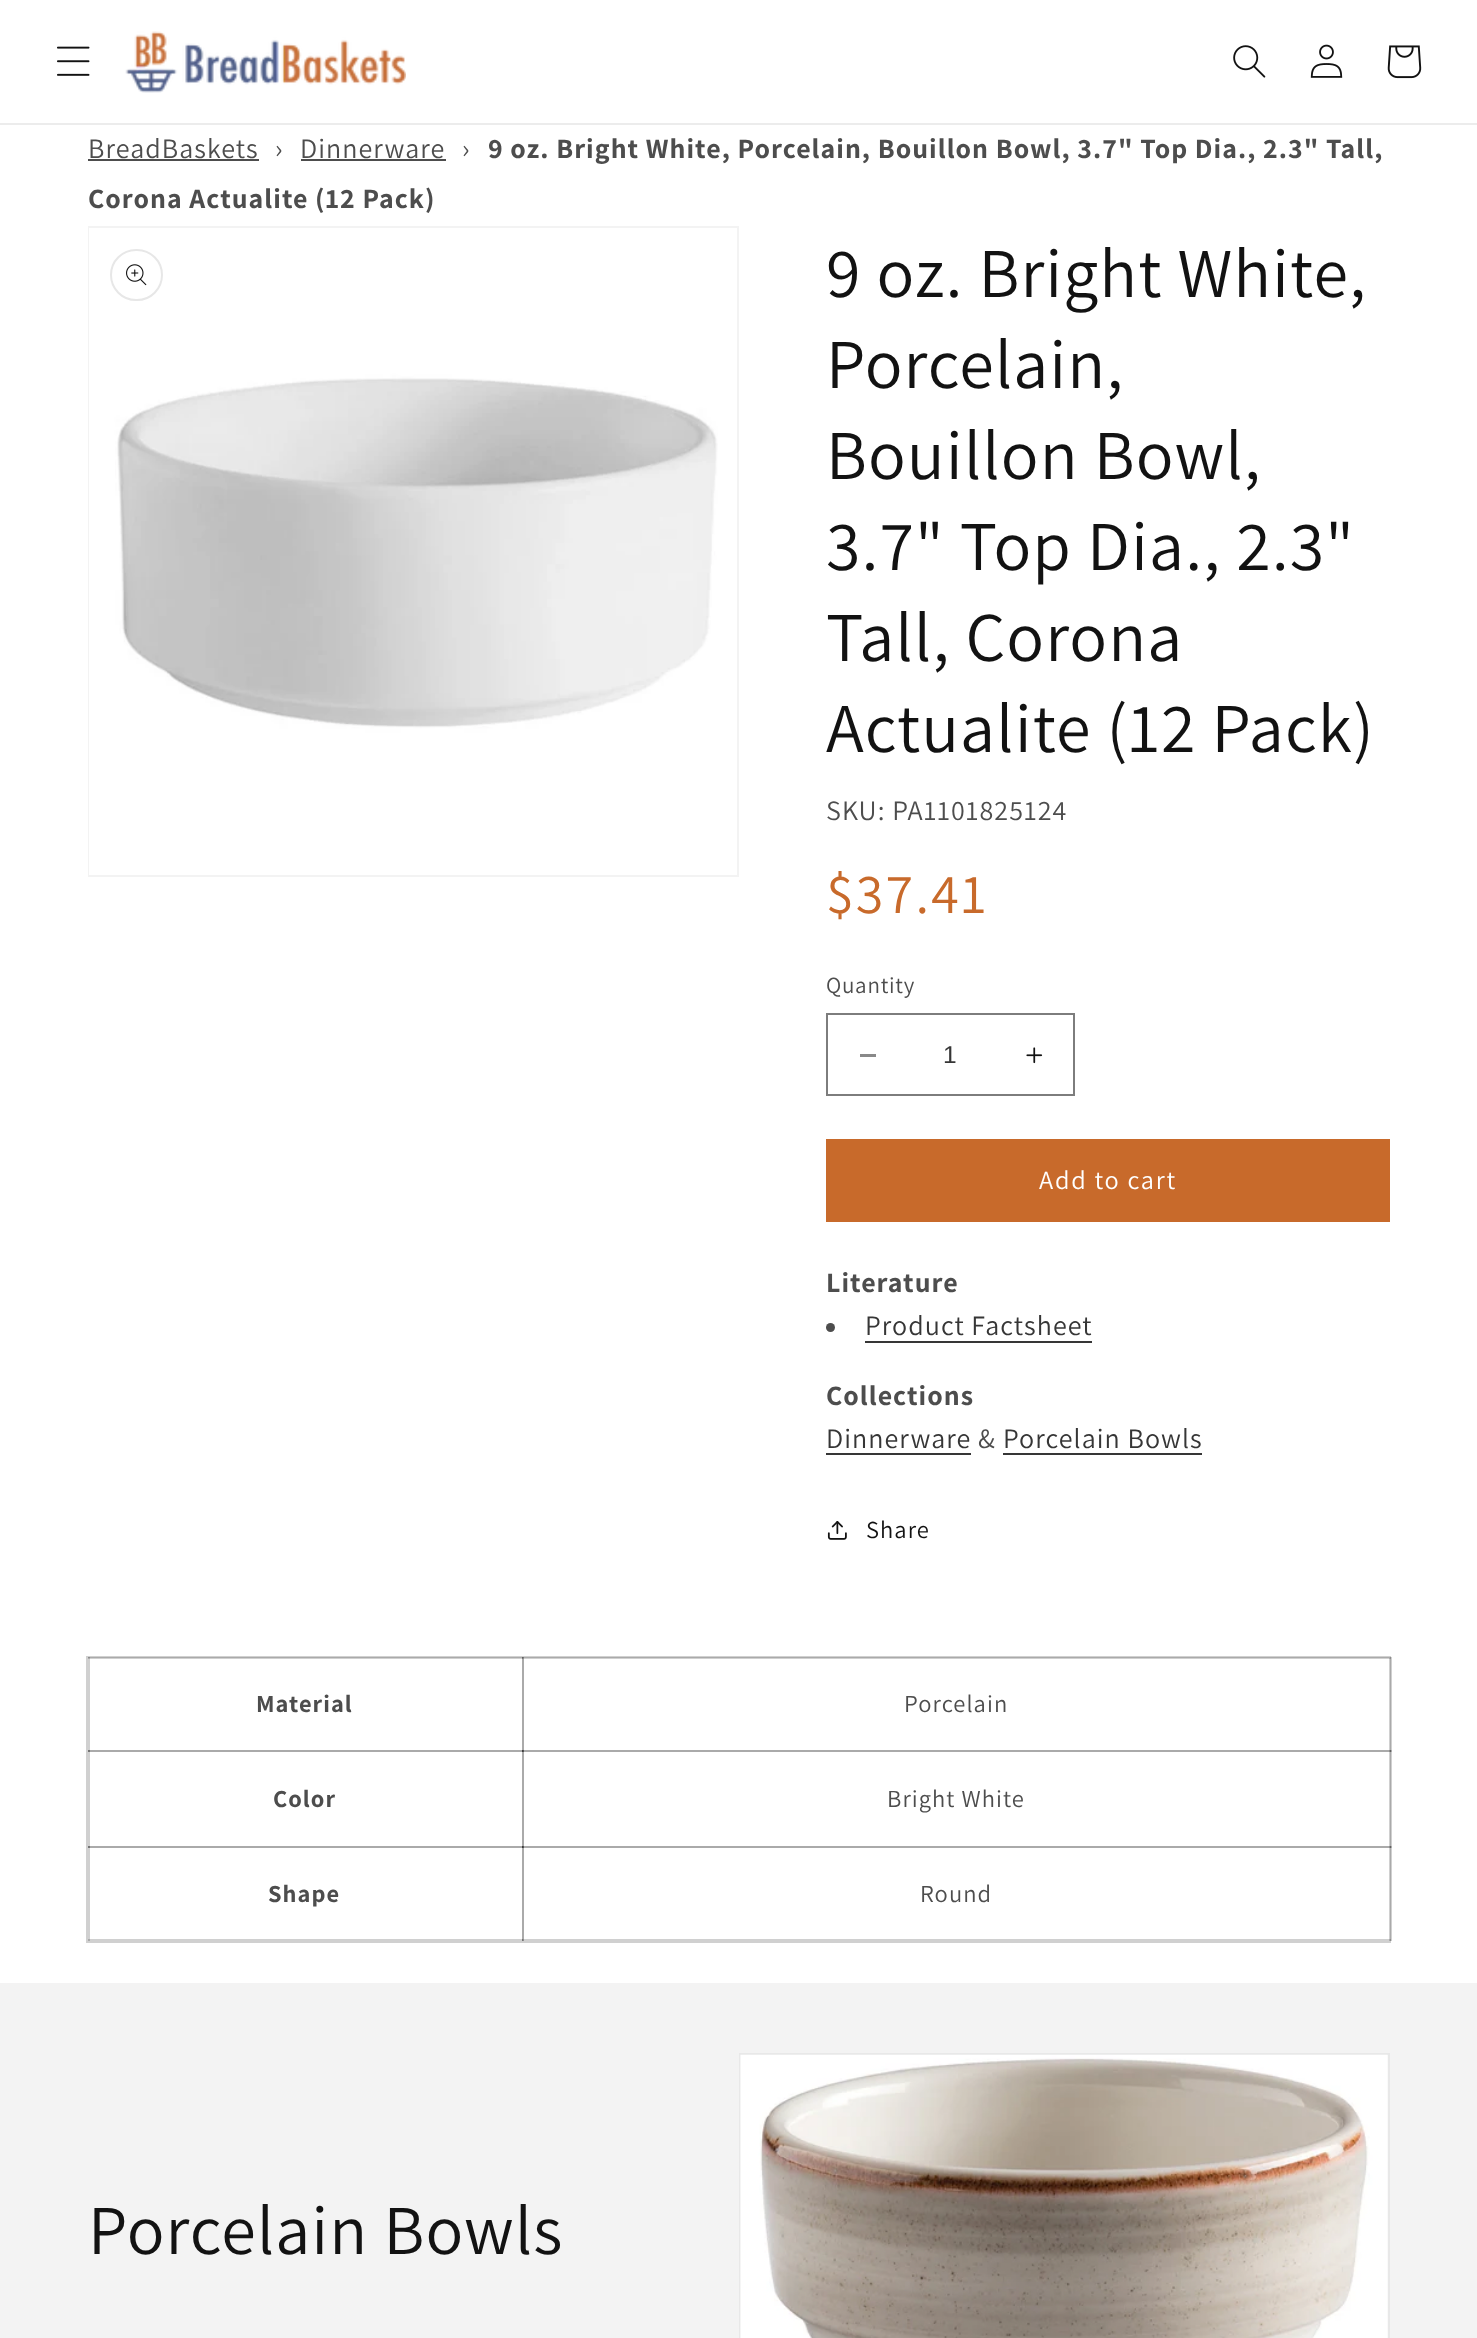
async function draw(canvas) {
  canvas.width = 1477;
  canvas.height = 2338;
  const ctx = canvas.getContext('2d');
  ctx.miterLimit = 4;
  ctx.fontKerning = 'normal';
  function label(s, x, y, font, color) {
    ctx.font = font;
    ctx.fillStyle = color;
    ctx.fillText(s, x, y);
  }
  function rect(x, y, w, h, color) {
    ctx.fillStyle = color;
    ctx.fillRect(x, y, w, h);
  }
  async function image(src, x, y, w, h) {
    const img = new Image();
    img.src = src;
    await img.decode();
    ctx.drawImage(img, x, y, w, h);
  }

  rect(0, 0, 1477, 2338, '#fff');
  rect(0, 123, 1477, 2, '#ececec');
  await image('assets/img1.png', 57, 46, 33, 30);
  await image('assets/img2.png', 125, 31, 281, 62);
  await image('assets/img3.png', 1233, 45, 33, 33);
  await image('assets/img4.png', 1310, 44, 33, 34);
  await image('assets/img5.png', 1387, 45, 35, 34);
  ctx.letterSpacing = '1.05px';
  label('BreadBaskets', 88, 158, '28px Assistant', '#4d4d4d');
  rect(88, 159, 171, 2, '#4d4d4d');
  label('›', 275, 158, '28px Assistant', '#4d4d4d');
  label('Dinnerware', 300, 158, '28px Assistant', '#4d4d4d');
  rect(301, 159, 145, 2, '#4d4d4d');
  label('›', 462, 158, '28px Assistant', '#4d4d4d');
  label('9 oz. Bright White, Porcelain, Bouillon Bowl, 3.7" Top Dia., 2.3" Tall,', 488, 158, 'bold 28px Assistant', '#4d4d4d');
  label('Corona Actualite (12 Pack)', 88, 208, 'bold 28px Assistant', '#4d4d4d');
  ctx.strokeStyle = '#f3f3f3';
  ctx.lineWidth = 2;
  ctx.strokeRect(89, 227, 649, 649);
  await image('assets/img6.png', 89, 228, 629, 647);
  ctx.beginPath();
  ctx.roundRect(111, 250, 51, 50, 25);
  ctx.strokeStyle = '#e7e7e7';
  ctx.stroke();
  await image('assets/img7.png', 126, 264, 21, 22);
  label('9 oz. Bright White,', 826, 297, '70px Assistant', '#121212');
  label('Porcelain,', 826, 388, '70px Assistant', '#121212');
  label('Bouillon Bowl,', 826, 479, '70px Assistant', '#121212');
  label('3.7" Top Dia., 2.3"', 826, 570, '70px Assistant', '#121212');
  label('Tall, Corona', 826, 661, '70px Assistant', '#121212');
  label('Actualite (12 Pack)', 826, 752, '70px Assistant', '#121212');
  label('SKU: PA1101825124', 826, 820, '28px Assistant', '#4d4d4d');
  ctx.letterSpacing = '2.25px';
  label('$37.41', 826, 913, '56px Assistant', '#c86a2b');
  ctx.letterSpacing = '0.75px';
  label('Quantity', 826, 993, '23px Assistant', '#4d4d4d');
  rect(860, 1054, 16, 3, '#898989');
  await image('assets/img8.png', 1026, 1047, 17, 17);
  ctx.strokeStyle = '#7d7d7d';
  ctx.strokeRect(827, 1014, 247, 81);
  ctx.letterSpacing = '0px';
  label('1', 943, 1063, '24.5px Liberation Sans', '#363636');
  rect(826, 1139, 564, 83, '#c86a2b');
  ctx.letterSpacing = '1.75px';
  label('Add to cart', 1039, 1189, '26.25px Assistant', '#fff');
  ctx.letterSpacing = '1.05px';
  label('Literature', 826, 1292, 'bold 28px Assistant', '#4d4d4d');
  ctx.beginPath();
  ctx.arc(830.5, 1327.5, 4.5, 0, 2 * Math.PI);
  ctx.fill();
  label('Product Factsheet', 865, 1335, '28px Assistant', '#363636');
  rect(865, 1341, 227, 2, '#363636');
  label('Collections', 826, 1405, 'bold 28px Assistant', '#4d4d4d');
  label('Dinnerware', 826, 1448, '28px Assistant', '#363636');
  rect(826, 1453, 145, 2, '#363636');
  label('&', 978, 1448, '28px Assistant', '#4d4d4d');
  label('Porcelain Bowls', 1003, 1448, '28px Assistant', '#363636');
  rect(1003, 1453, 199, 2, '#363636');
  await image('assets/img9.png', 827, 1521, 20, 19);
  label('Share', 866, 1538, '24.5px Assistant', '#121212');
  ctx.strokeStyle = '#d0d0d0';
  ctx.strokeRect(87, 1657, 1303, 285);
  rect(522, 1657, 869, 2, '#12121233');
  rect(522, 1750, 869, 2, '#12121233');
  rect(522, 1846, 869, 2, '#12121233');
  rect(1390, 1846, 2, 95, '#12121233');
  rect(1390, 1750, 2, 98, '#12121233');
  rect(1390, 1657, 2, 95, '#12121233');
  rect(522, 1939, 869, 2, '#12121233');
  rect(522, 1846, 2, 95, '#12121233');
  rect(88, 1846, 435, 2, '#12121233');
  rect(522, 1846, 2, 95, '#12121233');
  rect(522, 1846, 869, 2, '#12121233');
  rect(522, 1750, 2, 98, '#12121233');
  rect(88, 1750, 435, 2, '#12121233');
  rect(522, 1750, 2, 98, '#12121233');
  rect(522, 1750, 869, 2, '#12121233');
  rect(522, 1657, 2, 95, '#12121233');
  rect(88, 1657, 435, 2, '#12121233');
  rect(522, 1657, 2, 95, '#12121233');
  rect(88, 1939, 435, 2, '#12121233');
  rect(88, 1846, 2, 95, '#12121233');
  rect(88, 1846, 435, 2, '#12121233');
  rect(88, 1750, 2, 98, '#12121233');
  rect(88, 1750, 435, 2, '#12121233');
  rect(88, 1657, 2, 95, '#12121233');
  label('Material', 256, 1712, 'bold 24.5px Assistant', '#4d4d4d');
  label('Porcelain', 904, 1712, '24.5px Assistant', '#4d4d4d');
  label('Color', 273, 1807, 'bold 24.5px Assistant', '#4d4d4d');
  label('Bright White', 887, 1807, '24.5px Assistant', '#4d4d4d');
  label('Shape', 268, 1902, 'bold 24.5px Assistant', '#4d4d4d');
  label('Round', 920, 1902, '24.5px Assistant', '#4d4d4d');
  rect(0, 1983, 1477, 355, '#f3f3f3');
  label('Porcelain Bowls', 88, 2254, '70px Assistant', '#121212');
  ctx.strokeStyle = '#e8e8e8';
  ctx.strokeRect(740, 2054, 649, 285);
  await image('assets/img10.png', 740, 2054, 648, 284);
}

draw(document.querySelector('canvas'));
